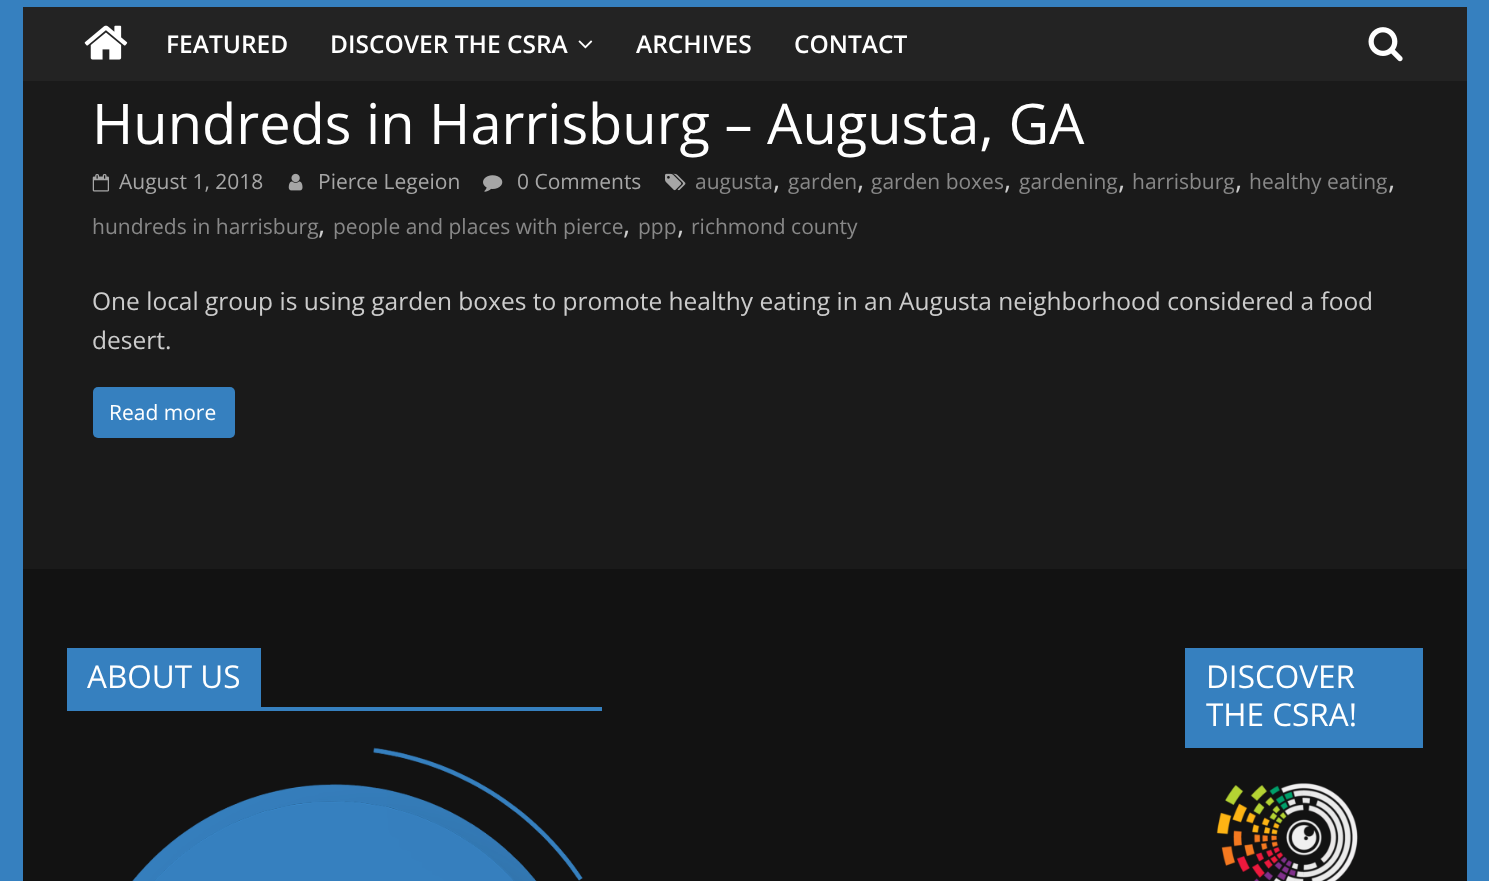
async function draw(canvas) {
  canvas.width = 1489;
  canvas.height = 881;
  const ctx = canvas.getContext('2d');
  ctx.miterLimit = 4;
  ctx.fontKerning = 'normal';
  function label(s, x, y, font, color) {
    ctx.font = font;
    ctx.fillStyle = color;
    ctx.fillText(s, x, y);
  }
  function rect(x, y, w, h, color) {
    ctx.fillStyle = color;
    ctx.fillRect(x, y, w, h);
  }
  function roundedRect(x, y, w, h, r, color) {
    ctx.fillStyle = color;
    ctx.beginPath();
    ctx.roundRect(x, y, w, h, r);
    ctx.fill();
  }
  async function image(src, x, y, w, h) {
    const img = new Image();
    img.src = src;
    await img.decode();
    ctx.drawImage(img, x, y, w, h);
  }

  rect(0, 0, 1489, 881, '#3680bf');
  rect(23, 81, 1444, 488, '#1a1a1a');
  rect(23, 7, 1444, 74, '#232323');
  await image('assets/img1.png', 84, 25, 44, 35);
  label('FEATURED', 166, 53, '600 24.5px Open Sans', '#fff');
  label('DISCOVER THE CSRA', 330, 53, '600 24.5px Open Sans', '#fff');
  await image('assets/img2.png', 578, 40, 15, 9);
  label('ARCHIVES', 636, 53, '600 24.5px Open Sans', '#fff');
  label('CONTACT', 794, 53, '600 24.5px Open Sans', '#fff');
  await image('assets/img3.png', 1368, 27, 35, 35);
  label('Hundreds in Harrisburg – Augusta, GA', 92, 144, '56px Open Sans', '#fff');
  await image('assets/img4.png', 665, 173, 21, 18);
  label('augusta', 695, 189, '21px Open Sans', '#888');
  label(',', 773, 189, '28px Open Sans', '#ccc');
  label('garden', 788, 189, '21px Open Sans', '#888');
  label(',', 857, 189, '28px Open Sans', '#ccc');
  label('garden boxes', 871, 189, '21px Open Sans', '#888');
  label(',', 1004, 189, '28px Open Sans', '#ccc');
  label('gardening', 1019, 189, '21px Open Sans', '#888');
  label(',', 1118, 189, '28px Open Sans', '#ccc');
  label('harrisburg', 1132, 189, '21px Open Sans', '#888');
  label(',', 1235, 189, '28px Open Sans', '#ccc');
  label('healthy eating', 1249, 189, '21px Open Sans', '#888');
  label(',', 1388, 189, '28px Open Sans', '#ccc');
  label('hundreds in harrisburg', 92, 234, '21px Open Sans', '#888');
  label(',', 318, 234, '28px Open Sans', '#ccc');
  label('people and places with pierce', 333, 234, '21px Open Sans', '#888');
  label(',', 623, 234, '28px Open Sans', '#ccc');
  label('ppp', 638, 234, '21px Open Sans', '#888');
  label(',', 677, 234, '28px Open Sans', '#ccc');
  label('richmond county', 691, 234, '21px Open Sans', '#888');
  await image('assets/img5.png', 92, 174, 17, 18);
  label('August 1, 2018', 119, 189, '21px Open Sans', '#a6a6a6');
  await image('assets/img6.png', 288, 173, 15, 18);
  label('Pierce Legeion', 318, 189, '21px Open Sans', '#a6a6a6');
  await image('assets/img7.png', 483, 175, 20, 17);
  label('0 Comments', 517, 189, '21px Open Sans', '#a6a6a6');
  label('One local group is using garden boxes to promote healthy eating in an Augusta neighborhood considered a food', 92, 310, '24.5px Open Sans', '#ccc');
  label('desert.', 92, 349, '24.5px Open Sans', '#ccc');
  roundedRect(93, 387, 142, 51, 5, '#3680bf');
  label('Read more', 109, 420, '21px Open Sans', '#fff');
  rect(23, 569, 1444, 312, '#121212');
  rect(67, 707, 535, 4, '#3680bf');
  rect(67, 648, 194, 59, '#3680bf');
  label('ABOUT US', 87, 688, '31.5px Open Sans', '#fff');
  await image('assets/img8.png', 132, 747, 451, 134);
  rect(1185, 648, 238, 100, '#3680bf');
  label('DISCOVER', 1206, 688, '31.5px Open Sans', '#fff');
  label('THE CSRA!', 1206, 726, '31.5px Open Sans', '#fff');
  await image('assets/img9.png', 1216, 783, 142, 98);
}

draw(document.querySelector('canvas'));
